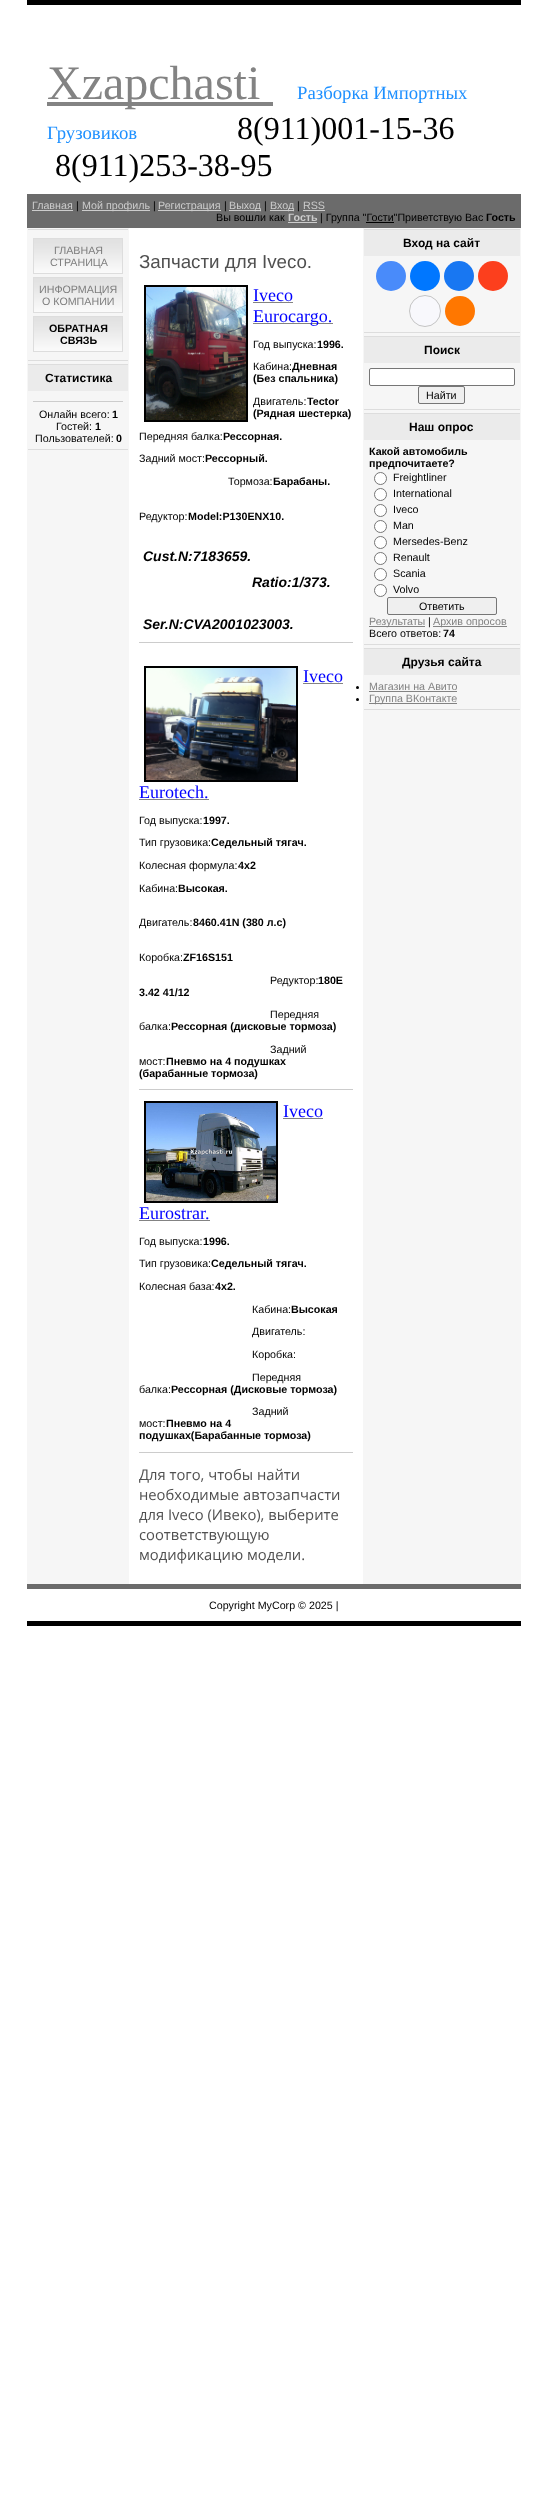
async function draw(canvas) {
  canvas.width = 548;
  canvas.height = 2517;
  const ctx = canvas.getContext('2d');
  ctx.miterLimit = 4;
  ctx.fontKerning = 'normal';
  function label(s, x, y, font, color) {
    ctx.font = font;
    ctx.fillStyle = color;
    ctx.fillText(s, x, y);
  }
  function rect(x, y, w, h, color) {
    ctx.fillStyle = color;
    ctx.fillRect(x, y, w, h);
  }
  async function image(src, x, y, w, h) {
    const img = new Image();
    img.src = src;
    await img.decode();
    ctx.drawImage(img, x, y, w, h);
  }

  rect(0, 0, 548, 2517, '#fff');
  rect(27, 0, 494, 5, '#000');
  rect(47, 102, 226, 4, '#838383');
  label('Xzapchasti', 47, 99, '48px Liberation Serif', '#838383');
  label('Разборка Импортных', 297, 99, '18.75px Liberation Serif', '#1e90ff');
  label('Грузовиков', 47, 139, '18.75px Liberation Serif', '#1e90ff');
  label('8(911)001-15-36', 237, 139, '32px Liberation Serif', '#000');
  label('8(911)253-38-95', 55, 176, '32px Liberation Serif', '#000');
  rect(27, 194, 494, 34, '#6b6b6b');
  label('Главная', 32, 209, '10.7px Liberation Sans', '#ccc');
  rect(32, 210, 41, 1, '#ccc');
  label('|', 76, 209, '10.7px Liberation Sans', '#000');
  rect(82, 210, 68, 1, '#ccc');
  label('Мой профиль', 82, 209, '10.7px Liberation Sans', '#ccc');
  label('|', 153, 209, '10.7px Liberation Sans', '#000');
  rect(158, 210, 63, 1, '#ccc');
  label('Регистрация', 158, 209, '10.7px Liberation Sans', '#ccc');
  label('|', 224, 209, '10.7px Liberation Sans', '#000');
  rect(229, 210, 32, 1, '#ccc');
  label('Выход', 229, 209, '10.7px Liberation Sans', '#ccc');
  label('|', 264, 209, '10.7px Liberation Sans', '#000');
  rect(270, 210, 24, 1, '#ccc');
  label('Вход', 270, 209, '10.7px Liberation Sans', '#ccc');
  label('|', 297, 209, '10.7px Liberation Sans', '#000');
  label('RSS', 303, 209, '10.7px Liberation Sans', '#ccc');
  rect(303, 210, 22, 1, '#ccc');
  label('Вы вошли как', 216, 221, '10.7px Liberation Sans', '#000');
  label('Гость', 288, 221, 'bold 10.7px Liberation Sans', '#ccc');
  rect(288, 222, 29, 1, '#ccc');
  label('| Группа "Гости"Приветствую Вас', 320, 221, '10.7px Liberation Sans', '#000');
  label('Гость', 486, 221, 'bold 10.7px Liberation Sans', '#000');
  rect(366, 222, 28, 1, '#000');
  rect(27, 228, 102, 1356, '#f6f6f6');
  rect(28, 229, 100, 1, '#ddd');
  rect(28, 360, 100, 1, '#ddd');
  await image('assets/img1.png', 34, 239, 88, 34);
  ctx.strokeStyle = '#ddd';
  ctx.strokeRect(33.5, 238.5, 89, 35);
  label('ГЛАВНАЯ', 54, 254, '10.7px Liberation Sans', '#7d7d7d');
  label('СТРАНИЦА', 50, 266, '10.7px Liberation Sans', '#7d7d7d');
  await image('assets/img1.png', 34, 278, 88, 34);
  ctx.strokeRect(33.5, 277.5, 89, 35);
  label('ИНФОРМАЦИЯ', 39, 293, '10.7px Liberation Sans', '#7d7d7d');
  label('О КОМПАНИИ', 42, 305, '10.7px Liberation Sans', '#7d7d7d');
  await image('assets/img1.png', 34, 317, 88, 34);
  ctx.strokeRect(33.5, 316.5, 89, 35);
  label('ОБРАТНАЯ', 49, 332, 'bold 10.7px Liberation Sans', '#000');
  label('СВЯЗЬ', 60, 344, 'bold 10.7px Liberation Sans', '#000');
  rect(28, 364, 100, 1, '#ddd');
  rect(28, 449, 100, 1, '#ddd');
  rect(28, 365, 100, 26, '#ebebeb');
  label('Статистика', 45, 382, 'bold 12px Liberation Sans', '#000');
  rect(33, 401, 90, 1, '#ccc');
  label('Онлайн всего:', 39, 418, '10.7px Liberation Sans', '#000');
  label('1', 112, 418, 'bold 10.7px Liberation Sans', '#000');
  label('Гостей:', 56, 430, '10.7px Liberation Sans', '#000');
  label('1', 95, 430, 'bold 10.7px Liberation Sans', '#000');
  label('Пользователей:', 35, 442, '10.7px Liberation Sans', '#000');
  label('0', 116, 442, 'bold 10.7px Liberation Sans', '#000');
  label('Запчасти для Iveco.', 139, 268, '18.75px Liberation Sans', '#505050');
  ctx.strokeStyle = '#000';
  ctx.lineWidth = 2;
  ctx.strokeRect(145, 286, 102, 135);
  await image('assets/img2.png', 146, 287, 100, 133);
  label('Iveco', 253, 301, '18px Liberation Serif', '#00f');
  rect(253, 302, 40, 1, '#838383');
  rect(253, 323, 80, 1, '#838383');
  label('Eurocargo.', 253, 322, '18px Liberation Serif', '#00f');
  label('Год выпуска:', 253, 348, '10.7px Liberation Sans', '#000');
  label('1996.', 317, 348, 'bold 10.7px Liberation Sans', '#000');
  label('Кабина:', 253, 370, '10.7px Liberation Sans', '#000');
  label('Дневная', 292, 370, 'bold 10.7px Liberation Sans', '#000');
  label('(Без спальника)', 253, 382, 'bold 10.7px Liberation Sans', '#000');
  label('Двигатель:', 253, 405, '10.7px Liberation Sans', '#000');
  label('Tector', 307, 405, 'bold 10.7px Liberation Sans', '#000');
  label('(Рядная шестерка)', 253, 417, 'bold 10.7px Liberation Sans', '#000');
  label('Передняя балка:', 139, 440, '10.7px Liberation Sans', '#000');
  label('Рессорная.', 223, 440, 'bold 10.7px Liberation Sans', '#000');
  label('Задний мост:', 139, 462, '10.7px Liberation Sans', '#000');
  label('Рессорный.', 205, 462, 'bold 10.7px Liberation Sans', '#000');
  label('Тормоза:', 228, 485, '10.7px Liberation Sans', '#000');
  label('Барабаны.', 273, 485, 'bold 10.7px Liberation Sans', '#000');
  label('Редуктор:', 139, 520, '10.7px Liberation Sans', '#000');
  label('Model:P130ENX10.', 188, 520, 'bold 10.7px Liberation Sans', '#000');
  label('Cust.N:7183659.', 143, 561, 'italic bold 14px Liberation Sans', '#000');
  label('Ratio:1/373.', 252, 587, 'italic bold 14px Liberation Sans', '#000');
  label('Ser.N:CVA2001023003.', 143, 629, 'italic bold 14px Liberation Sans', '#000');
  rect(139, 642, 214, 1, '#ccc');
  ctx.strokeRect(145, 667, 152, 114);
  await image('assets/img3.png', 146, 668, 150, 112);
  label('Iveco', 303, 682, '18px Liberation Serif', '#00f');
  rect(303, 683, 40, 1, '#838383');
  label('Eurotech.', 139, 798, '18px Liberation Serif', '#00f');
  rect(139, 799, 70, 1, '#838383');
  label('Год выпуска:', 139, 824, '10.7px Liberation Sans', '#000');
  label('1997.', 203, 824, 'bold 10.7px Liberation Sans', '#000');
  label('Тип грузовика:', 139, 846, '10.7px Liberation Sans', '#000');
  label('Седельный тягач.', 211, 846, 'bold 10.7px Liberation Sans', '#000');
  label('Колесная формула:', 139, 869, '10.7px Liberation Sans', '#000');
  label('4х2', 238, 869, 'bold 10.7px Liberation Sans', '#000');
  label('Кабина:', 139, 892, '10.7px Liberation Sans', '#000');
  label('Высокая.', 178, 892, 'bold 10.7px Liberation Sans', '#000');
  label('Двигатель:', 139, 926, '10.7px Liberation Sans', '#000');
  label('8460.41N (380 л.с)', 193, 926, 'bold 10.7px Liberation Sans', '#000');
  label('Коробка:', 139, 961, '10.7px Liberation Sans', '#000');
  label('ZF16S151', 183, 961, 'bold 10.7px Liberation Sans', '#000');
  label('Редуктор:', 270, 984, '10.7px Liberation Sans', '#000');
  label('180E', 318, 984, 'bold 10.7px Liberation Sans', '#000');
  label('3.42 41/12', 139, 996, 'bold 10.7px Liberation Sans', '#000');
  label('Передняя', 270, 1018, '10.7px Liberation Sans', '#000');
  label('балка:', 139, 1030, '10.7px Liberation Sans', '#000');
  label('Рессорная (дисковые тормоза)', 171, 1030, 'bold 10.7px Liberation Sans', '#000');
  label('Задний', 270, 1053, '10.7px Liberation Sans', '#000');
  label('мост:', 139, 1065, '10.7px Liberation Sans', '#000');
  label('Пневмо на 4 подушках', 166, 1065, 'bold 10.7px Liberation Sans', '#000');
  label('(барабанные тормоза)', 139, 1077, 'bold 10.7px Liberation Sans', '#000');
  rect(139, 1089, 214, 1, '#ccc');
  ctx.strokeRect(145, 1102, 132, 100);
  await image('assets/img4.png', 146, 1103, 130, 98);
  label('Iveco', 283, 1117, '18px Liberation Serif', '#00f');
  rect(283, 1118, 40, 1, '#838383');
  label('Eurostrar.', 139, 1219, '18px Liberation Serif', '#00f');
  rect(139, 1220, 71, 1, '#838383');
  label('Год выпуска:', 139, 1245, '10.7px Liberation Sans', '#000');
  label('1996.', 203, 1245, 'bold 10.7px Liberation Sans', '#000');
  label('Тип грузовика:', 139, 1267, '10.7px Liberation Sans', '#000');
  label('Седельный тягач.', 211, 1267, 'bold 10.7px Liberation Sans', '#000');
  label('Колесная база:', 139, 1290, '10.7px Liberation Sans', '#000');
  label('4х2.', 215, 1290, 'bold 10.7px Liberation Sans', '#000');
  label('Кабина:', 252, 1313, '10.7px Liberation Sans', '#000');
  label('Высокая', 291, 1313, 'bold 10.7px Liberation Sans', '#000');
  label('Двигатель:', 252, 1335, '10.7px Liberation Sans', '#000');
  label('Коробка:', 252, 1358, '10.7px Liberation Sans', '#000');
  label('Передняя', 252, 1381, '10.7px Liberation Sans', '#000');
  label('балка:', 139, 1393, '10.7px Liberation Sans', '#000');
  label('Рессорная (Дисковые тормоза)', 171, 1393, 'bold 10.7px Liberation Sans', '#000');
  label('Задний', 252, 1415, '10.7px Liberation Sans', '#000');
  label('мост:', 139, 1427, '10.7px Liberation Sans', '#000');
  label('Пневмо на 4', 166, 1427, 'bold 10.7px Liberation Sans', '#000');
  label('подушках(Барабанные тормоза)', 139, 1439, 'bold 10.7px Liberation Sans', '#000');
  rect(139, 1452, 214, 1, '#ccc');
  label('Для того, чтобы найти', 139, 1480, '14.75px Open Sans', '#505050');
  label('необходимые автозапчасти', 139, 1500, '14.75px Open Sans', '#505050');
  label('для Iveco (Ивеко), выберите', 139, 1520, '14.75px Open Sans', '#505050');
  label('соответствующую', 139, 1540, '14.75px Open Sans', '#505050');
  label('модификацию модели.', 139, 1560, '14.75px Open Sans', '#505050');
  rect(363, 228, 158, 1356, '#f6f6f6');
  rect(364, 229, 156, 1, '#ddd');
  rect(364, 332, 156, 1, '#ddd');
  rect(364, 230, 156, 26, '#ebebeb');
  label('Вход на сайт', 403, 247, 'bold 12px Liberation Sans', '#000');
  ctx.fillStyle = '#498bfa';
  ctx.beginPath();
  ctx.arc(391, 276, 15, 0, 2 * Math.PI);
  ctx.fill();
  ctx.fillStyle = '#07f';
  ctx.beginPath();
  ctx.arc(425, 276, 15, 0, 2 * Math.PI);
  ctx.fill();
  ctx.fillStyle = '#1877f2';
  ctx.beginPath();
  ctx.arc(459, 276, 15, 0, 2 * Math.PI);
  ctx.fill();
  ctx.fillStyle = '#fc3f1d';
  ctx.beginPath();
  ctx.arc(493, 276, 15, 0, 2 * Math.PI);
  ctx.fill();
  ctx.fillStyle = '#f8f8fc';
  ctx.beginPath();
  ctx.arc(425, 311, 15.5, 0, 2 * Math.PI);
  ctx.fill();
  ctx.strokeStyle = '#c4c4c4';
  ctx.lineWidth = 1;
  ctx.stroke();
  ctx.fillStyle = '#f70';
  ctx.beginPath();
  ctx.arc(460, 311, 15, 0, 2 * Math.PI);
  ctx.fill();
  rect(364, 336, 156, 1, '#ddd');
  rect(364, 409, 156, 1, '#ddd');
  rect(364, 337, 156, 26, '#ebebeb');
  label('Поиск', 424, 354, 'bold 12px Liberation Sans', '#000');
  ctx.fillStyle = '#fff';
  ctx.beginPath();
  ctx.roundRect(369.5, 368.5, 145, 17, 1.5);
  ctx.fill();
  ctx.strokeStyle = '#767676';
  ctx.stroke();
  ctx.fillStyle = '#efefef';
  ctx.beginPath();
  ctx.roundRect(418.5, 386.5, 46, 17, 1.5);
  ctx.fill();
  ctx.stroke();
  label('Найти', 426, 399, '10.7px Liberation Sans', '#000');
  rect(364, 413, 156, 1, '#ddd');
  rect(364, 644, 156, 1, '#ddd');
  rect(364, 414, 156, 26, '#ebebeb');
  label('Наш опрос', 409, 431, 'bold 12px Liberation Sans', '#000');
  label('Какой автомобиль', 369, 455, 'bold 10.7px Liberation Sans', '#000');
  label('предпочитаете?', 369, 467, 'bold 10.7px Liberation Sans', '#000');
  ctx.fillStyle = '#fff';
  ctx.beginPath();
  ctx.arc(380.5, 478.5, 6, 0, 2 * Math.PI);
  ctx.fill();
  ctx.stroke();
  label('Freightliner', 393, 481, '10.7px Liberation Sans', '#000');
  ctx.fillStyle = '#fff';
  ctx.beginPath();
  ctx.arc(380.5, 494.5, 6, 0, 2 * Math.PI);
  ctx.fill();
  ctx.stroke();
  label('International', 393, 497, '10.7px Liberation Sans', '#000');
  ctx.fillStyle = '#fff';
  ctx.beginPath();
  ctx.arc(380.5, 510.5, 6, 0, 2 * Math.PI);
  ctx.fill();
  ctx.stroke();
  label('Iveco', 393, 513, '10.7px Liberation Sans', '#000');
  ctx.fillStyle = '#fff';
  ctx.beginPath();
  ctx.arc(380.5, 526.5, 6, 0, 2 * Math.PI);
  ctx.fill();
  ctx.stroke();
  label('Man', 393, 529, '10.7px Liberation Sans', '#000');
  ctx.fillStyle = '#fff';
  ctx.beginPath();
  ctx.arc(380.5, 542.5, 6, 0, 2 * Math.PI);
  ctx.fill();
  ctx.stroke();
  label('Mersedes-Benz', 393, 545, '10.7px Liberation Sans', '#000');
  ctx.fillStyle = '#fff';
  ctx.beginPath();
  ctx.arc(380.5, 558.5, 6, 0, 2 * Math.PI);
  ctx.fill();
  ctx.stroke();
  label('Renault', 393, 561, '10.7px Liberation Sans', '#000');
  ctx.fillStyle = '#fff';
  ctx.beginPath();
  ctx.arc(380.5, 574.5, 6, 0, 2 * Math.PI);
  ctx.fill();
  ctx.stroke();
  label('Scania', 393, 577, '10.7px Liberation Sans', '#000');
  ctx.fillStyle = '#fff';
  ctx.beginPath();
  ctx.arc(380.5, 590.5, 6, 0, 2 * Math.PI);
  ctx.fill();
  ctx.stroke();
  label('Volvo', 393, 593, '10.7px Liberation Sans', '#000');
  ctx.fillStyle = '#efefef';
  ctx.beginPath();
  ctx.roundRect(387.5, 597.5, 109, 17, 1.5);
  ctx.fill();
  ctx.stroke();
  label('Ответить', 419, 610, '10.7px Liberation Sans', '#000');
  rect(369, 626, 56, 1, '#838383');
  label('Результаты', 369, 625, '10.7px Liberation Sans', '#838383');
  label('|', 428, 625, '10.7px Liberation Sans', '#000');
  rect(433, 626, 74, 1, '#838383');
  label('Архив опросов', 433, 625, '10.7px Liberation Sans', '#838383');
  label('Всего ответов:', 369, 637, '10.7px Liberation Sans', '#000');
  label('74', 443, 637, 'bold 10.7px Liberation Sans', '#000');
  rect(364, 648, 156, 1, '#ddd');
  rect(364, 709, 156, 1, '#ddd');
  rect(364, 649, 156, 26, '#ebebeb');
  label('Друзья сайта', 402, 666, 'bold 12px Liberation Sans', '#000');
  ctx.beginPath();
  ctx.arc(357.5, 687.5, 1.5, 0, 2 * Math.PI);
  ctx.fill();
  label('Магазин на Авито', 369, 690, '10.7px Liberation Sans', '#838383');
  rect(369, 691, 88, 1, '#838383');
  ctx.fillStyle = '#000';
  ctx.beginPath();
  ctx.arc(357.5, 699.5, 1.5, 0, 2 * Math.PI);
  ctx.fill();
  rect(369, 703, 88, 1, '#838383');
  label('Группа ВКонтакте', 369, 702, '10.7px Liberation Sans', '#838383');
  rect(27, 1584, 494, 5, '#6b6b6b');
  rect(27, 1621, 494, 5, '#000');
  label('Copyright MyCorp © 2025 |', 209, 1609, '10.7px Liberation Sans', '#000');
}

draw(document.querySelector('canvas'));
